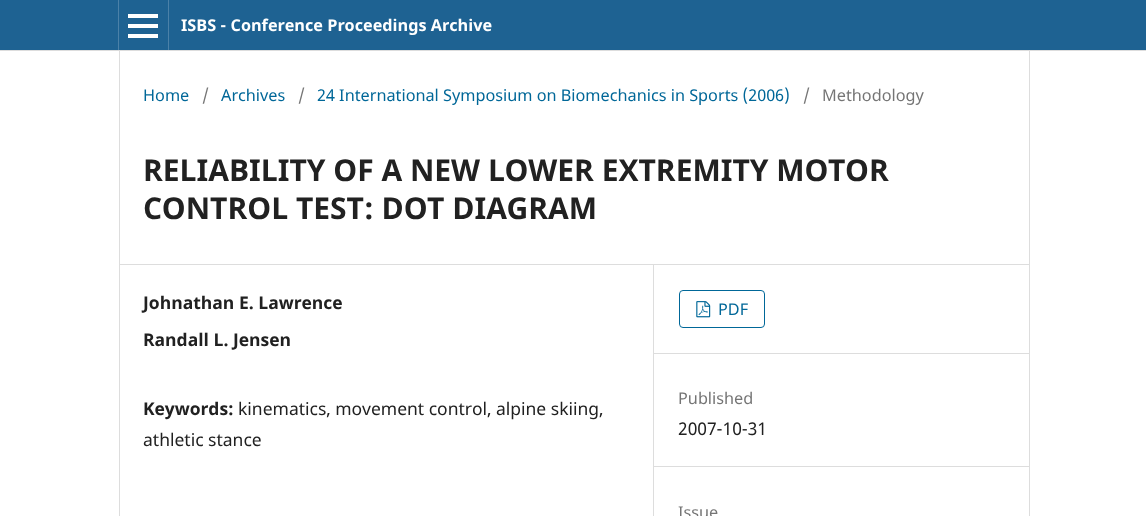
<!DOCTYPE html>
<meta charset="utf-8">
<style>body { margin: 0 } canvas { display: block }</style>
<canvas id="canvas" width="1146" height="516"></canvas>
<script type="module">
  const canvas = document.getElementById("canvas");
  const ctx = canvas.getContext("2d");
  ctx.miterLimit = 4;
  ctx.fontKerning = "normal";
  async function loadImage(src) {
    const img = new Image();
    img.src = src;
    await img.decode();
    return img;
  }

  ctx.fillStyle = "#ffffff";
  ctx.fillRect(0, 0, 1146, 516);
  ctx.fillStyle = "#1e6292";
  ctx.fillRect(0, 0, 1146, 50);
  ctx.fillStyle = "#dddddd";
  ctx.fillRect(0, 50, 1146, 1);
  ctx.fillStyle = "#4b81a8";
  ctx.fillRect(118, 0, 1, 50);
  ctx.fillRect(168, 0, 1, 50);
  ctx.fillStyle = "#ffffff";
  ctx.fillRect(128, 34, 30, 4);
  ctx.fillRect(128, 14, 30, 4);
  ctx.fillRect(128, 24, 30, 4);
  ctx.font = "bold 16.25px Noto Sans";
  ctx.fillText("ISBS - Conference Proceedings Archive", 181, 31);
  ctx.fillStyle = "#dddddd";
  ctx.fillRect(119, 264, 910, 1);
  ctx.fillRect(119, 51, 1, 465);
  ctx.font = "16.25px Noto Sans";
  ctx.fillStyle = "#006798";
  ctx.fillText("Home", 143, 101);
  ctx.fillStyle = "#757575";
  ctx.fillText("/", 202, 101);
  ctx.fillStyle = "#006798";
  ctx.fillText("Archives", 221, 101);
  ctx.fillStyle = "#757575";
  ctx.fillText("/", 298, 101);
  ctx.fillStyle = "#006798";
  ctx.fillText("24 International Symposium on Biomechanics in Sports (2006)", 317, 101);
  ctx.fillStyle = "#757575";
  ctx.fillText("/", 803, 101);
  ctx.fillText("Methodology", 822, 101);
  ctx.font = "bold 30px Noto Sans";
  ctx.fillStyle = "#212121";
  ctx.fillText("RELIABILITY OF A NEW LOWER EXTREMITY MOTOR", 143, 181);
  ctx.fillText("CONTROL TEST: DOT DIAGRAM", 143, 219);
  ctx.fillStyle = "#dddddd";
  ctx.fillRect(653, 265, 1, 251);
  ctx.font = "bold 17.5px Noto Sans";
  ctx.fillStyle = "#212121";
  ctx.fillText("Johnathan E. Lawrence", 143, 309);
  ctx.fillText("Randall L. Jensen", 143, 346);
  ctx.fillText("Keywords:", 143, 415);
  ctx.font = "17.5px Noto Sans";
  ctx.fillText("kinematics, movement control, alpine skiing,", 238, 415);
  ctx.fillText("athletic stance", 143, 446);
  ctx.fillStyle = "#dddddd";
  ctx.fillRect(654, 353, 375, 1);
  ctx.beginPath();
  ctx.roundRect(679.5, 290.5, 85, 37, 3.5);
  ctx.strokeStyle = "#006798";
  ctx.stroke();
  ctx.drawImage(await loadImage("img1.png"), 696, 301, 15, 17);
  ctx.font = "16.25px Noto Sans";
  ctx.fillStyle = "#006798";
  ctx.fillText("PDF", 718, 315);
  ctx.fillStyle = "#dddddd";
  ctx.fillRect(654, 466, 375, 1);
  ctx.fillStyle = "#757575";
  ctx.fillText("Published", 678, 404);
  ctx.font = "17.5px Noto Sans";
  ctx.fillStyle = "#212121";
  ctx.fillText("2007-10-31", 678, 435);
  ctx.font = "16.25px Noto Sans";
  ctx.fillStyle = "#757575";
  ctx.fillText("Issue", 678, 518);
  ctx.fillStyle = "#dddddd";
  ctx.fillRect(1029, 51, 1, 465);
</script>
